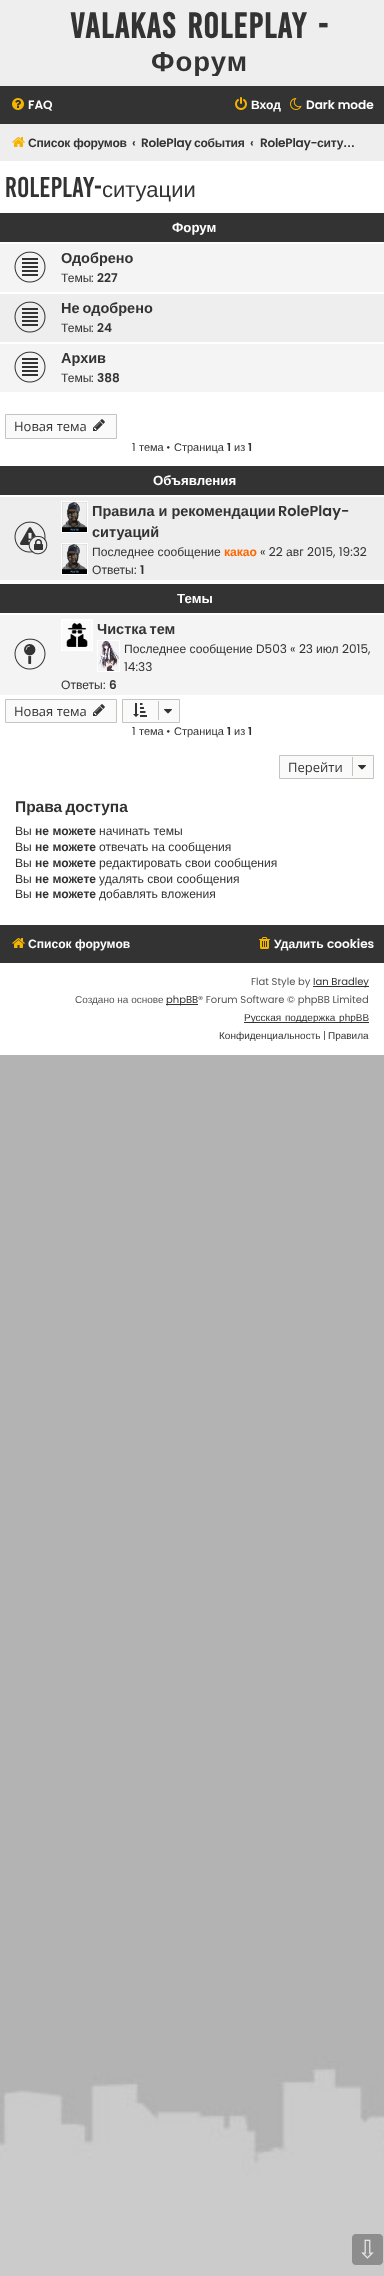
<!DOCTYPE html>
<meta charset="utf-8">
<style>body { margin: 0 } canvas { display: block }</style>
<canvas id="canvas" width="384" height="2276"></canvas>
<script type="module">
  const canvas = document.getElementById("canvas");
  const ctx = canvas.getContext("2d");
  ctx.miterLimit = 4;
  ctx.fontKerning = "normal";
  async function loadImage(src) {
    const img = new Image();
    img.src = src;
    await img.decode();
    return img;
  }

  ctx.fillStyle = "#ffffff";
  ctx.fillRect(0, 0, 384, 2276);
  ctx.drawImage(await loadImage("img1.png"), 0, 1055, 384, 1221);
  ctx.fillStyle = "#eeeeee";
  ctx.fillRect(0, 0, 384, 86);
  ctx.letterSpacing = "1px";
  ctx.wordSpacing = "4px";
  ctx.font = "bold 27.5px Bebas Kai";
  ctx.fillStyle = "#333333";
  ctx.fillText("Valakas Roleplay -", 70, 38);
  ctx.save();
  ctx.beginPath();
  ctx.rect(25, 10, 349, 66);
  ctx.clip();
  ctx.wordSpacing = "0px";
  ctx.font = "bold 27.5px Liberation Sans";
  ctx.fillText("Форум", 151, 71);
  ctx.restore();
  ctx.fillRect(0, 86, 384, 38);
  ctx.drawImage(await loadImage("img2.png"), 12, 98, 12, 12);
  ctx.letterSpacing = "0px";
  ctx.wordSpacing = "0px";
  ctx.font = "600 12.1px Poppins";
  ctx.fillStyle = "#ffffff";
  ctx.fillText("FAQ", 28, 109);
  ctx.drawImage(await loadImage("img3.png"), 235, 97, 12, 13);
  ctx.font = "bold 12.1px Liberation Sans";
  ctx.fillText("Вход", 251, 109);
  ctx.drawImage(await loadImage("img4.png"), 290, 98, 12, 12);
  ctx.font = "600 12.1px Poppins";
  ctx.fillText("Dark mode", 306, 109);
  ctx.fillStyle = "#eeeeee";
  ctx.fillRect(0, 124, 384, 37);
  ctx.drawImage(await loadImage("img5.png"), 12, 137, 13, 10);
  ctx.letterSpacing = "-0.25px";
  ctx.font = "bold 12.1px Liberation Sans";
  ctx.fillStyle = "#333333";
  ctx.fillText("Список форумов", 28, 147);
  ctx.letterSpacing = "0px";
  ctx.font = "600 12.1px Poppins";
  ctx.fillText("‹", 132, 147);
  ctx.letterSpacing = "-0.25px";
  ctx.fillText("RolePlay", 141, 147);
  ctx.font = "bold 12.1px Liberation Sans";
  ctx.fillText("события", 194, 147);
  ctx.letterSpacing = "0px";
  ctx.font = "600 12.1px Poppins";
  ctx.fillText("‹", 250, 147);
  ctx.letterSpacing = "-0.25px";
  ctx.fillText("RolePlay-", 260, 147);
  ctx.font = "bold 12.1px Liberation Sans";
  ctx.fillText("ситу…", 317, 147);
  ctx.letterSpacing = "0px";
  ctx.font = "22px Bebas Kai";
  ctx.fillText("RolePlay-", 5, 197);
  ctx.font = "22px Liberation Sans";
  ctx.fillText("ситуации", 102, 197);
  ctx.fillRect(0, 213, 384, 29);
  ctx.font = "bold 13.25px Liberation Sans";
  ctx.fillStyle = "#ffffff";
  ctx.fillText("Форум", 172, 232);
  ctx.fillStyle = "#eeeeee";
  ctx.fillRect(0, 294, 384, 48);
  ctx.fillStyle = "#f4f4f4";
  ctx.fillRect(0, 244, 384, 48);
  ctx.drawImage(await loadImage("img6.png"), 14, 251, 32, 32);
  ctx.font = "bold 14.5px Liberation Sans";
  ctx.fillStyle = "#333333";
  ctx.fillText("Одобрено", 61, 263);
  ctx.font = "12.1px Liberation Sans";
  ctx.fillText("Темы", 61, 282);
  ctx.font = "12.1px Poppins";
  ctx.fillText(":", 91, 282);
  ctx.font = "600 12.1px Poppins";
  ctx.fillText("227", 97, 282);
  ctx.drawImage(await loadImage("img7.png"), 14, 301, 32, 32);
  ctx.wordSpacing = "-1px";
  ctx.font = "bold 14.5px Liberation Sans";
  ctx.fillText("Не одобрено", 61, 313);
  ctx.wordSpacing = "0px";
  ctx.font = "12.1px Liberation Sans";
  ctx.fillText("Темы", 61, 332);
  ctx.font = "12.1px Poppins";
  ctx.fillText(":", 91, 332);
  ctx.font = "600 12.1px Poppins";
  ctx.fillText("24", 97, 332);
  ctx.fillStyle = "#f4f4f4";
  ctx.fillRect(0, 344, 384, 48);
  ctx.drawImage(await loadImage("img6.png"), 14, 351, 32, 32);
  ctx.font = "bold 14.5px Liberation Sans";
  ctx.fillStyle = "#333333";
  ctx.fillText("Архив", 61, 363);
  ctx.font = "12.1px Liberation Sans";
  ctx.fillText("Темы", 61, 382);
  ctx.font = "12.1px Poppins";
  ctx.fillText(":", 91, 382);
  ctx.font = "600 12.1px Poppins";
  ctx.fillText("388", 97, 382);
  ctx.fillStyle = "#fafafa";
  ctx.beginPath();
  ctx.rect(5.5, 414.5, 111, 24);
  ctx.fill();
  ctx.strokeStyle = "#c7c3bf";
  ctx.stroke();
  ctx.font = "13px Open Sans";
  ctx.fillStyle = "#333333";
  ctx.fillText("Новая тема", 14, 431);
  ctx.drawImage(await loadImage("img8.png"), 93, 419, 12, 12);
  ctx.font = "11px Poppins";
  ctx.fillText("1", 132, 451);
  ctx.font = "11px Liberation Sans";
  ctx.fillText("тема", 139, 451);
  ctx.font = "11px Poppins";
  ctx.fillText("•", 166, 451);
  ctx.font = "11px Liberation Sans";
  ctx.fillText("Страница", 174, 451);
  ctx.font = "600 11px Poppins";
  ctx.fillText("1", 227, 451);
  ctx.font = "11px Liberation Sans";
  ctx.fillText("из", 234, 451);
  ctx.font = "600 11px Poppins";
  ctx.fillText("1", 248, 451);
  ctx.fillRect(0, 466, 384, 29);
  ctx.font = "bold 13.25px Liberation Sans";
  ctx.fillStyle = "#ffffff";
  ctx.fillText("Объявления", 153, 485);
  ctx.fillStyle = "#eeeeee";
  ctx.fillRect(0, 497, 384, 83);
  ctx.drawImage(await loadImage("img9.png"), 14, 521, 34, 34);
  ctx.strokeStyle = "#ffffff";
  ctx.strokeRect(61.5, 501.5, 26, 31);
  ctx.drawImage(await loadImage("img10.png"), 62, 502, 25, 30);
  ctx.font = "bold 14.5px Liberation Sans";
  ctx.fillStyle = "#333333";
  ctx.fillText("Правила и рекомендации", 92, 516);
  ctx.font = "600 14.5px Poppins";
  ctx.fillText("RolePlay-", 278, 516);
  ctx.font = "bold 14.5px Liberation Sans";
  ctx.fillText("ситуаций", 92, 537);
  ctx.strokeRect(61.5, 543.5, 26, 31);
  ctx.drawImage(await loadImage("img10.png"), 62, 544, 25, 30);
  ctx.font = "12.1px Liberation Sans";
  ctx.fillText("Последнее сообщение", 92, 556);
  ctx.font = "bold 12.1px Liberation Sans";
  ctx.fillStyle = "#ff6600";
  ctx.fillText("какао", 224, 556);
  ctx.font = "12.1px Poppins";
  ctx.fillStyle = "#333333";
  ctx.fillText("« 22", 260, 556);
  ctx.font = "12.1px Liberation Sans";
  ctx.fillText("авг", 286, 556);
  ctx.font = "12.1px Poppins";
  ctx.fillText("2015, 19:32", 307, 556);
  ctx.font = "12.1px Liberation Sans";
  ctx.fillText("Ответы", 92, 574);
  ctx.font = "12.1px Poppins";
  ctx.fillText(":", 134, 574);
  ctx.font = "600 12.1px Poppins";
  ctx.fillText("1", 140, 574);
  ctx.fillRect(0, 584, 384, 29);
  ctx.font = "bold 13.25px Liberation Sans";
  ctx.fillStyle = "#ffffff";
  ctx.fillText("Темы", 177, 603);
  ctx.fillStyle = "#f4f4f4";
  ctx.fillRect(0, 615, 384, 80);
  ctx.drawImage(await loadImage("img11.png"), 14, 638, 32, 32);
  ctx.strokeRect(61.5, 619.5, 31, 31);
  ctx.drawImage(await loadImage("img12.png"), 62, 620, 30, 30);
  ctx.wordSpacing = "-1px";
  ctx.font = "bold 14.5px Liberation Sans";
  ctx.fillStyle = "#333333";
  ctx.fillText("Чистка тем", 97, 634);
  ctx.strokeRect(97.5, 640.5, 22, 31);
  ctx.drawImage(await loadImage("img13.png"), 98, 641, 21, 30);
  ctx.wordSpacing = "0px";
  ctx.font = "12.1px Liberation Sans";
  ctx.fillText("Последнее сообщение", 124, 653);
  ctx.font = "12.1px Poppins";
  ctx.fillText("D503 « 23", 256, 653);
  ctx.font = "12.1px Liberation Sans";
  ctx.fillText("июл", 316, 653);
  ctx.font = "12.1px Poppins";
  ctx.fillText("2015,", 342, 653);
  ctx.fillText("14:33", 124, 671);
  ctx.font = "12.1px Liberation Sans";
  ctx.fillText("Ответы", 61, 689);
  ctx.font = "12.1px Poppins";
  ctx.fillText(":", 103, 689);
  ctx.font = "600 12.1px Poppins";
  ctx.fillText("6", 109, 689);
  ctx.fillStyle = "#fafafa";
  ctx.beginPath();
  ctx.rect(5.5, 699.5, 111, 23);
  ctx.fill();
  ctx.strokeStyle = "#c7c3bf";
  ctx.stroke();
  ctx.font = "13px Open Sans";
  ctx.fillStyle = "#333333";
  ctx.fillText("Новая тема", 14, 716);
  ctx.drawImage(await loadImage("img8.png"), 93, 704, 12, 12);
  ctx.fillStyle = "#fafafa";
  ctx.beginPath();
  ctx.rect(122.5, 699.5, 57, 23);
  ctx.fill();
  ctx.stroke();
  ctx.drawImage(await loadImage("img14.png"), 133, 703, 14, 14);
  ctx.fillStyle = "#c7c3bf";
  ctx.fillRect(158, 701, 1, 19);
  ctx.drawImage(await loadImage("img15.png"), 164, 709, 8, 5);
  ctx.font = "11px Poppins";
  ctx.fillStyle = "#333333";
  ctx.fillText("1", 132, 735);
  ctx.font = "11px Liberation Sans";
  ctx.fillText("тема", 139, 735);
  ctx.font = "11px Poppins";
  ctx.fillText("•", 166, 735);
  ctx.font = "11px Liberation Sans";
  ctx.fillText("Страница", 174, 735);
  ctx.font = "600 11px Poppins";
  ctx.fillText("1", 227, 735);
  ctx.font = "11px Liberation Sans";
  ctx.fillText("из", 234, 735);
  ctx.font = "600 11px Poppins";
  ctx.fillText("1", 248, 735);
  ctx.fillStyle = "#fafafa";
  ctx.beginPath();
  ctx.rect(279.5, 755.5, 94, 23);
  ctx.fill();
  ctx.stroke();
  ctx.font = "13px Open Sans";
  ctx.fillStyle = "#333333";
  ctx.fillText("Перейти", 288, 772);
  ctx.fillStyle = "#c7c3bf";
  ctx.fillRect(352, 757, 1, 19);
  ctx.drawImage(await loadImage("img15.png"), 358, 765, 8, 5);
  ctx.wordSpacing = "-1px";
  ctx.font = "bold 15.5px Liberation Sans";
  ctx.fillStyle = "#333333";
  ctx.fillText("Права доступа", 15, 812);
  ctx.wordSpacing = "0px";
  ctx.font = "12.1px Liberation Sans";
  ctx.fillText("Вы", 15, 835);
  ctx.font = "bold 12.1px Liberation Sans";
  ctx.fillText("не можете", 35, 835);
  ctx.font = "12.1px Liberation Sans";
  ctx.fillText("начинать темы", 99, 835);
  ctx.fillText("Вы", 15, 851);
  ctx.font = "bold 12.1px Liberation Sans";
  ctx.fillText("не можете", 35, 851);
  ctx.font = "12.1px Liberation Sans";
  ctx.fillText("отвечать на сообщения", 99, 851);
  ctx.fillText("Вы", 15, 867);
  ctx.font = "bold 12.1px Liberation Sans";
  ctx.fillText("не можете", 35, 867);
  ctx.font = "12.1px Liberation Sans";
  ctx.fillText("редактировать свои сообщения", 99, 867);
  ctx.fillText("Вы", 15, 883);
  ctx.font = "bold 12.1px Liberation Sans";
  ctx.fillText("не можете", 35, 883);
  ctx.font = "12.1px Liberation Sans";
  ctx.fillText("удалять свои сообщения", 99, 883);
  ctx.fillText("Вы", 15, 898);
  ctx.font = "bold 12.1px Liberation Sans";
  ctx.fillText("не можете", 35, 898);
  ctx.font = "12.1px Liberation Sans";
  ctx.fillText("добавлять вложения", 99, 898);
  ctx.fillRect(0, 925, 384, 38);
  ctx.drawImage(await loadImage("img16.png"), 12, 938, 13, 10);
  ctx.font = "bold 12.1px Liberation Sans";
  ctx.fillStyle = "#ffffff";
  ctx.fillText("Список форумов", 28, 948);
  ctx.drawImage(await loadImage("img17.png"), 259, 937, 11, 12);
  ctx.fillText("Удалить", 274, 948);
  ctx.font = "600 12.1px Poppins";
  ctx.fillText("cookies", 327, 948);
  ctx.font = "10px Poppins";
  ctx.fillStyle = "#555555";
  ctx.fillText("Flat Style by", 251, 985);
  ctx.fillStyle = "#333333";
  ctx.fillRect(313, 986, 56, 1);
  ctx.fillText("Ian Bradley", 313, 985);
  ctx.font = "10px Liberation Sans";
  ctx.fillStyle = "#555555";
  ctx.fillText("Создано на основе", 75, 1003);
  ctx.fillStyle = "#333333";
  ctx.fillRect(166, 1004, 32, 1);
  ctx.font = "10px Poppins";
  ctx.fillText("phpBB", 166, 1003);
  ctx.fillStyle = "#555555";
  ctx.fillText("® Forum Software © phpBB Limited", 198, 1003);
  ctx.fillStyle = "#333333";
  ctx.fillRect(244, 1022, 125, 1);
  ctx.wordSpacing = "1px";
  ctx.font = "10px Liberation Sans";
  ctx.fillText("Русская поддержка phpBB", 244, 1021);
  ctx.wordSpacing = "0px";
  ctx.fillText("Конфиденциальность", 219, 1039);
  ctx.font = "10px Poppins";
  ctx.fillStyle = "#555555";
  ctx.fillText("|", 323, 1039);
  ctx.font = "10px Liberation Sans";
  ctx.fillStyle = "#333333";
  ctx.fillText("Правила", 328, 1039);
  ctx.fillStyle = "#8d8d8d";
  ctx.beginPath();
  ctx.roundRect(351.5, 2233.5, 32, 32, 4.5);
  ctx.fill();
  ctx.strokeStyle = "#cccccc";
  ctx.stroke();
  ctx.font = "25px DejaVu Sans";
  ctx.fillStyle = "#e5e5e5";
  ctx.fillText("⇩", 357, 2258);
</script>
